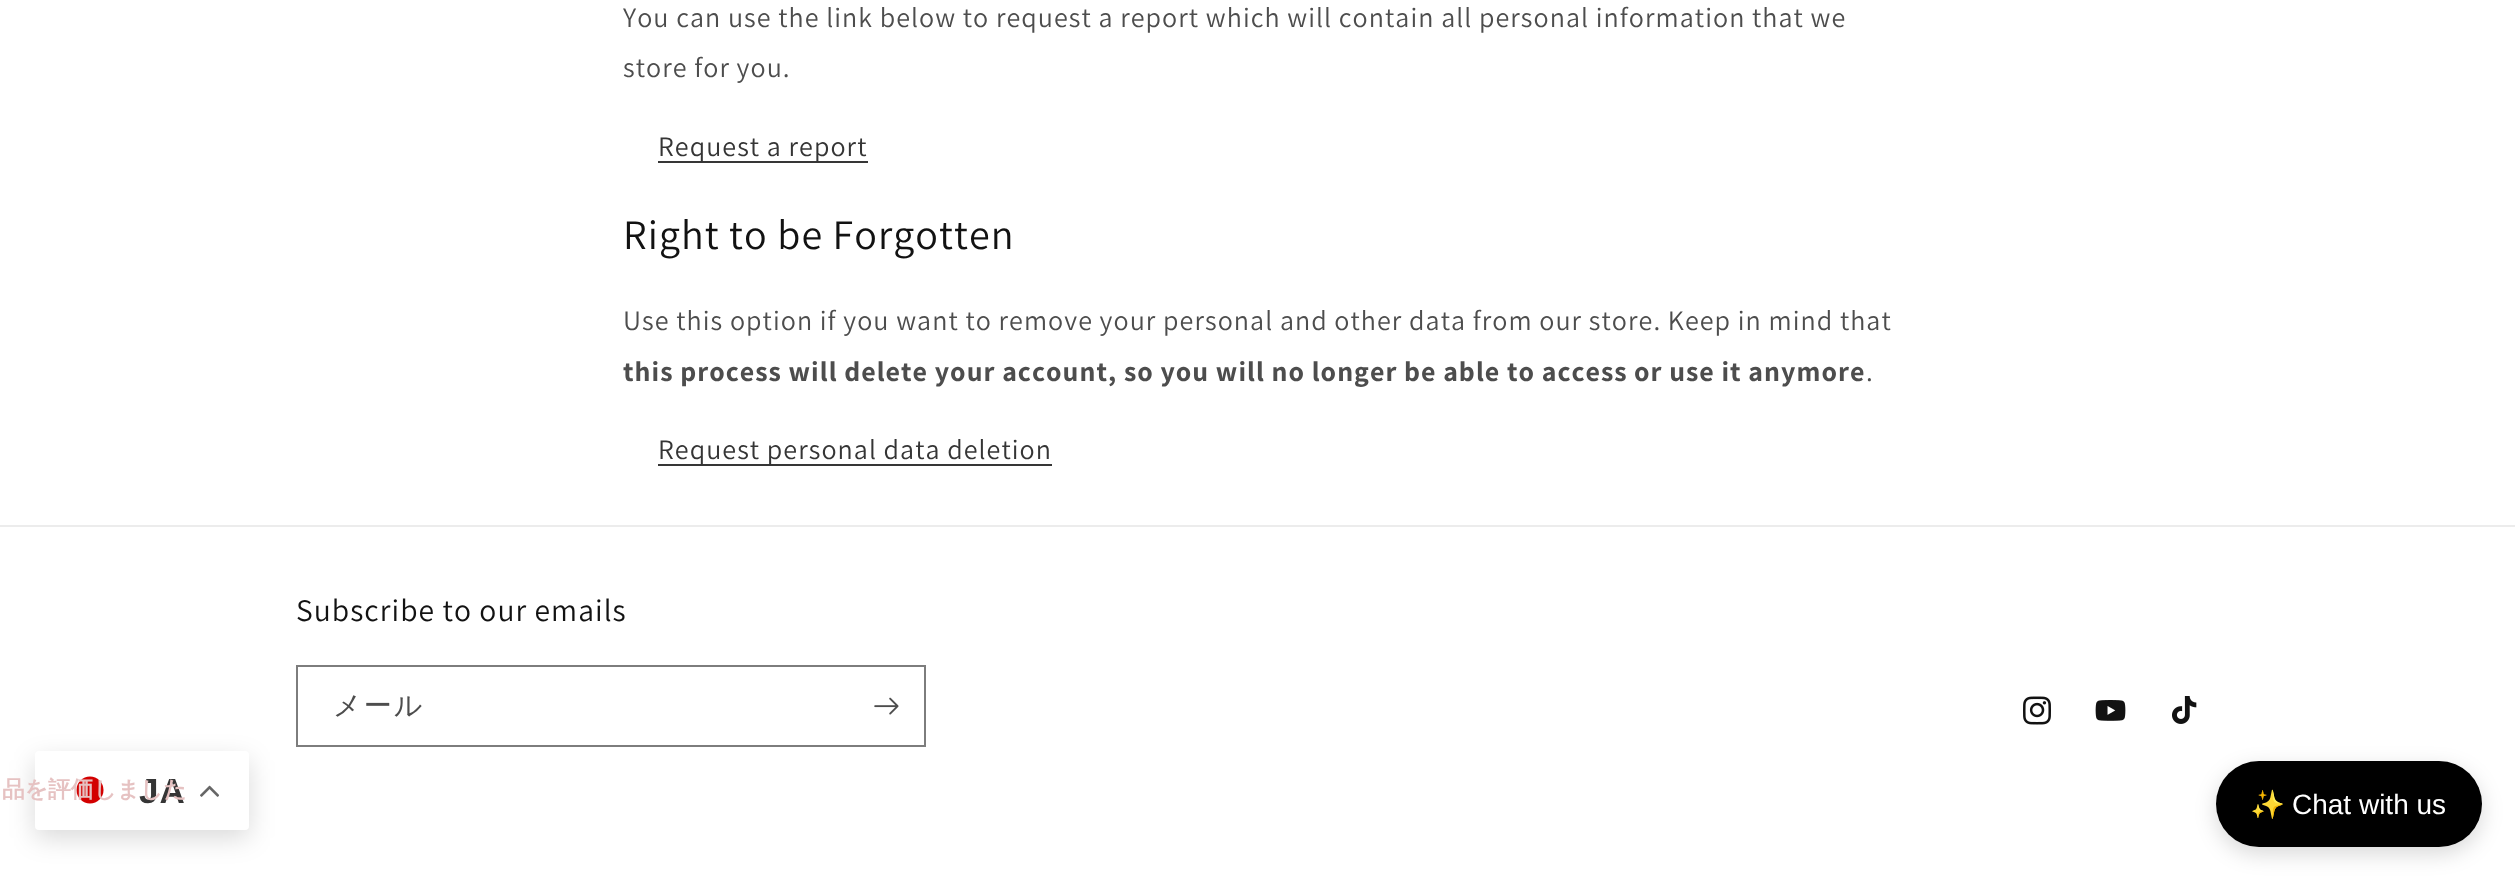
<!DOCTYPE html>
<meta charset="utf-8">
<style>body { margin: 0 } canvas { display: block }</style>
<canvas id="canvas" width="2515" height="882"></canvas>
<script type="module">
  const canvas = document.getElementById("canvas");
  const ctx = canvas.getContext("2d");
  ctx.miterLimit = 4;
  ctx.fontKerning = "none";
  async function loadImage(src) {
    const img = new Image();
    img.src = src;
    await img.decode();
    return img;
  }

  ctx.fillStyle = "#ffffff";
  ctx.fillRect(0, 0, 2515, 882);
  ctx.letterSpacing = "1.05px";
  ctx.font = "28px Assistant";
  ctx.fillStyle = "#4d4d4d";
  ctx.fillText("You can use the link below to request a report which will contain all personal information that we", 623, 27);
  ctx.fillText("store for you.", 623, 77);
  ctx.fillStyle = "#363636";
  ctx.fillRect(658, 161, 210, 2);
  ctx.fillStyle = "#353535";
  ctx.fillText("Request a report", 658, 156);
  ctx.font = "42px Assistant";
  ctx.fillStyle = "#121212";
  ctx.fillText("Right to be Forgotten", 623, 249);
  ctx.font = "28px Assistant";
  ctx.fillStyle = "#4d4d4d";
  ctx.fillText("Use this option if you want to remove your personal and other data from our store. Keep in mind that", 623, 330);
  ctx.font = "bold 28px Assistant";
  ctx.fillText("this process will delete your account, so you will no longer be able to access", 623, 381);
  ctx.fillText("or use it anymore", 1634, 381);
  ctx.font = "28px Assistant";
  ctx.fillText(".", 1866, 381);
  ctx.fillStyle = "#363636";
  ctx.fillRect(658, 464, 394, 2);
  ctx.fillStyle = "#353535";
  ctx.fillText("Request personal data deletion", 658, 459);
  ctx.fillStyle = "#ececec";
  ctx.fillRect(0, 525, 2515, 2);
  ctx.font = "31.5px Assistant";
  ctx.fillStyle = "#121212";
  ctx.fillText("Subscribe to our emails", 296, 621);
  ctx.strokeStyle = "#7d7d7d";
  ctx.lineWidth = 2;
  ctx.strokeRect(297, 666, 628, 80);
  ctx.letterSpacing = "2px";
  ctx.font = "500 28px WenQuanYi Zen Hei";
  ctx.fillStyle = "#4d4d4d";
  ctx.fillText("メール", 333, 715);
  ctx.drawImage(await loadImage("img1.png"), 874, 697, 25, 18);
  ctx.drawImage(await loadImage("img2.png"), 2023, 696, 28, 29);
  ctx.drawImage(await loadImage("img3.png"), 2095, 700, 31, 21);
  ctx.drawImage(await loadImage("img4.png"), 2172, 696, 25, 28);
  ctx.fillStyle = "rgba(0, 0, 0, 0.15)";
  ctx.filter = "blur(13px)";
  ctx.beginPath();
  ctx.roundRect(35, 760, 214, 78, 4);
  ctx.fill();
  ctx.filter = "none";
  ctx.fillStyle = "#ffffff";
  ctx.beginPath();
  ctx.roundRect(35, 751, 214, 79, 4);
  ctx.fill();
  ctx.fillStyle = "#d30000";
  ctx.beginPath();
  ctx.arc(90, 790, 13.5, 0, Math.PI * 2);
  ctx.fill();
  ctx.letterSpacing = "1.05px";
  ctx.font = "bold 35px Liberation Sans";
  ctx.fillStyle = "#353535";
  ctx.fillText("JA", 139, 803);
  ctx.letterSpacing = "0px";
  ctx.font = "bold 22.75px WenQuanYi Zen Hei";
  ctx.fillStyle = "#e6c2c2";
  ctx.fillText("品を評価しました", 2, 797);
  ctx.drawImage(await loadImage("img5.png"), 200, 785, 19, 12);
  ctx.fillStyle = "rgba(0, 0, 0, 0.15)";
  ctx.filter = "blur(10.5px)";
  ctx.beginPath();
  ctx.roundRect(2216, 768, 266, 86, 43);
  ctx.fill();
  ctx.filter = "none";
  ctx.fillStyle = "#000000";
  ctx.beginPath();
  ctx.roundRect(2216, 761, 266, 86, 43);
  ctx.fill();
  ctx.font = "28px Noto Color Emoji";
  ctx.fillStyle = "#ffffff";
  ctx.fillText("✨", 2250, 814);
  ctx.font = "28px Liberation Sans";
  ctx.fillText("Chat with us", 2292, 814);
</script>
